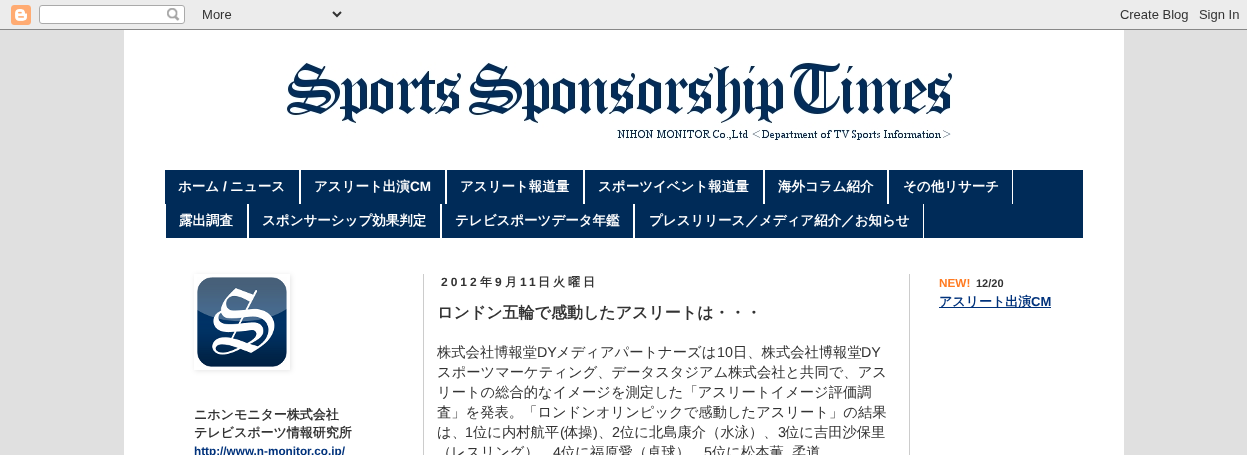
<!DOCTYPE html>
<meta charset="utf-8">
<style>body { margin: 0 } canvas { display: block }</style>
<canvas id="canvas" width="1247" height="455"></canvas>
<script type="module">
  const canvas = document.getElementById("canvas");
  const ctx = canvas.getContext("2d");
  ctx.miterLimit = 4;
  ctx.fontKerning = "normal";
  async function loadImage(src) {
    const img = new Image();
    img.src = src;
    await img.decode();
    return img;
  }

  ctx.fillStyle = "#e0e0e0";
  ctx.fillRect(0, 0, 1247, 455);
  ctx.drawImage(await loadImage("img1.png"), 0, 0, 1247, 30);
  ctx.fillStyle = "#ffffff";
  ctx.fillRect(124, 30, 1000, 425);
  ctx.drawImage(await loadImage("img2.png"), 286, 62, 667, 78);
  ctx.fillStyle = "#002b58";
  ctx.fillRect(165, 170, 918, 68);
  ctx.fillStyle = "#ffffff";
  ctx.fillRect(299, 170, 2, 34);
  ctx.font = "bold 13.5px WenQuanYi Zen Hei";
  ctx.fillText("ホーム", 178, 191);
  ctx.font = "bold 13.5px Liberation Sans";
  ctx.fillText("/", 223, 191);
  ctx.font = "bold 13.5px WenQuanYi Zen Hei";
  ctx.fillText("ニュース", 230, 191);
  ctx.fillRect(445, 170, 2, 34);
  ctx.fillText("アスリート出演", 314, 191);
  ctx.font = "bold 13.5px Liberation Sans";
  ctx.fillText("CM", 410, 191);
  ctx.fillRect(583, 170, 2, 34);
  ctx.font = "bold 13.5px WenQuanYi Zen Hei";
  ctx.fillText("アスリート報道量", 460, 191);
  ctx.fillRect(763, 170, 2, 34);
  ctx.fillText("スポーツイベント報道量", 598, 191);
  ctx.fillRect(887, 170, 2, 34);
  ctx.fillText("海外コラム紹介", 778, 191);
  ctx.fillRect(1012, 170, 1, 34);
  ctx.fillText("その他リサーチ", 903, 191);
  ctx.fillRect(247, 204, 2, 34);
  ctx.fillRect(165, 204, 1, 34);
  ctx.fillText("露出調査", 179, 225);
  ctx.fillRect(440, 204, 2, 34);
  ctx.fillText("スポンサーシップ効果判定", 262, 225);
  ctx.fillRect(633, 204, 2, 34);
  ctx.fillText("テレビスポーツデータ年鑑", 455, 225);
  ctx.fillRect(923, 204, 1, 34);
  ctx.fillText("プレスリリース／メディア紹介／お知らせ", 649, 225);
  ctx.fillStyle = "#cccccc";
  ctx.fillRect(423, 274, 1, 181);
  ctx.fillRect(909, 274, 1, 181);
  ctx.letterSpacing = "3px";
  ctx.font = "bold 12px Liberation Sans";
  ctx.fillStyle = "#333333";
  ctx.fillText("2012", 441, 286);
  ctx.font = "bold 12px WenQuanYi Zen Hei";
  ctx.fillText("年", 480, 286);
  ctx.font = "bold 12px Liberation Sans";
  ctx.fillText("9", 495, 286);
  ctx.font = "bold 12px WenQuanYi Zen Hei";
  ctx.fillText("月", 505, 286);
  ctx.font = "bold 12px Liberation Sans";
  ctx.fillText("11", 520, 286);
  ctx.font = "bold 12px WenQuanYi Zen Hei";
  ctx.fillText("日火曜日", 538, 286);
  ctx.letterSpacing = "0px";
  ctx.font = "bold 16px WenQuanYi Zen Hei";
  ctx.fillText("ロンドン五輪で感動したアスリートは・・・", 437, 318);
  ctx.font = "500 14.3px WenQuanYi Zen Hei";
  ctx.fillText("株式会社博報堂", 437, 357);
  ctx.font = "14.3px Liberation Sans";
  ctx.fillText("DY", 537, 357);
  ctx.font = "500 14.3px WenQuanYi Zen Hei";
  ctx.fillText("メディアパートナーズは", 556, 357);
  ctx.font = "14.3px Liberation Sans";
  ctx.fillText("10", 717, 357);
  ctx.font = "500 14.3px WenQuanYi Zen Hei";
  ctx.fillText("日、株式会社博報堂", 733, 357);
  ctx.font = "14.3px Liberation Sans";
  ctx.fillText("DY", 861, 357);
  ctx.font = "500 14.3px WenQuanYi Zen Hei";
  ctx.fillText("スポーツマーケティング、データスタジアム株式会社と共同で、アス", 437, 377);
  ctx.fillText("リートの総合的なイメージを測定した「アスリートイメージ評価調", 437, 397);
  ctx.fillText("査」を発表。「ロンドンオリンピックで感動したアスリート」の結果", 437, 417);
  ctx.fillText("は、", 437, 437);
  ctx.font = "14.3px Liberation Sans";
  ctx.fillText("1", 465, 437);
  ctx.font = "500 14.3px WenQuanYi Zen Hei";
  ctx.fillText("位に内村航平", 473, 437);
  ctx.font = "14.3px Liberation Sans";
  ctx.fillText("(", 560, 437);
  ctx.font = "500 14.3px WenQuanYi Zen Hei";
  ctx.fillText("体操", 564, 437);
  ctx.font = "14.3px Liberation Sans";
  ctx.fillText(")", 593, 437);
  ctx.font = "500 14.3px WenQuanYi Zen Hei";
  ctx.fillText("、", 598, 437);
  ctx.font = "14.3px Liberation Sans";
  ctx.fillText("2", 612, 437);
  ctx.font = "500 14.3px WenQuanYi Zen Hei";
  ctx.fillText("位に北島康介（水泳）、", 620, 437);
  ctx.font = "14.3px Liberation Sans";
  ctx.fillText("3", 778, 437);
  ctx.font = "500 14.3px WenQuanYi Zen Hei";
  ctx.fillText("位に吉田沙保里", 785, 437);
  ctx.fillText("（レスリング）", 437, 457);
  ctx.font = "14.3px Liberation Sans";
  ctx.fillText("4", 553, 457);
  ctx.font = "500 14.3px WenQuanYi Zen Hei";
  ctx.fillText("位に福原愛（卓球）", 561, 457);
  ctx.font = "14.3px Liberation Sans";
  ctx.fillText("5", 704, 457);
  ctx.font = "500 14.3px WenQuanYi Zen Hei";
  ctx.fillText("位に松本薫", 712, 457);
  ctx.fillText("柔道", 792, 457);
  ctx.font = "bold 11.75px Liberation Sans";
  ctx.fillStyle = "#ff7a21";
  ctx.fillText("NEW!", 939, 287);
  ctx.font = "bold 11px Liberation Sans";
  ctx.fillStyle = "#333333";
  ctx.fillText("12/20", 976, 287);
  ctx.fillStyle = "#00327b";
  ctx.fillRect(939, 307, 112, 1);
  ctx.font = "bold 13px WenQuanYi Zen Hei";
  ctx.fillText("アスリート出演", 939, 306);
  ctx.font = "bold 13px Liberation Sans";
  ctx.fillText("CM", 1031, 306);
  ctx.save();
  ctx.beginPath();
  ctx.moveTo(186, 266);
  ctx.lineTo(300, 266);
  ctx.lineTo(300, 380);
  ctx.lineTo(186, 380);
  ctx.closePath();
  ctx.moveTo(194, 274);
  ctx.lineTo(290, 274);
  ctx.lineTo(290, 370);
  ctx.lineTo(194, 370);
  ctx.closePath();
  ctx.clip("evenodd");
  ctx.fillStyle = "rgba(0, 0, 0, 0.1)";
  ctx.filter = "blur(2.5px)";
  ctx.beginPath();
  ctx.rect(195, 275, 96, 96);
  ctx.fill();
  ctx.filter = "none";
  ctx.restore();
  ctx.drawImage(await loadImage("img3.png"), 197, 277, 90, 90);
  ctx.font = "bold 13px WenQuanYi Zen Hei";
  ctx.fillStyle = "#333333";
  ctx.fillText("ニホンモニター株式会社", 194, 419);
  ctx.fillText("テレビスポーツ情報研究所", 194, 437);
  ctx.font = "bold 11.75px Liberation Sans";
  ctx.fillStyle = "#00327b";
  ctx.fillText("http://www.n-monitor.co.jp/", 194, 455);
</script>
